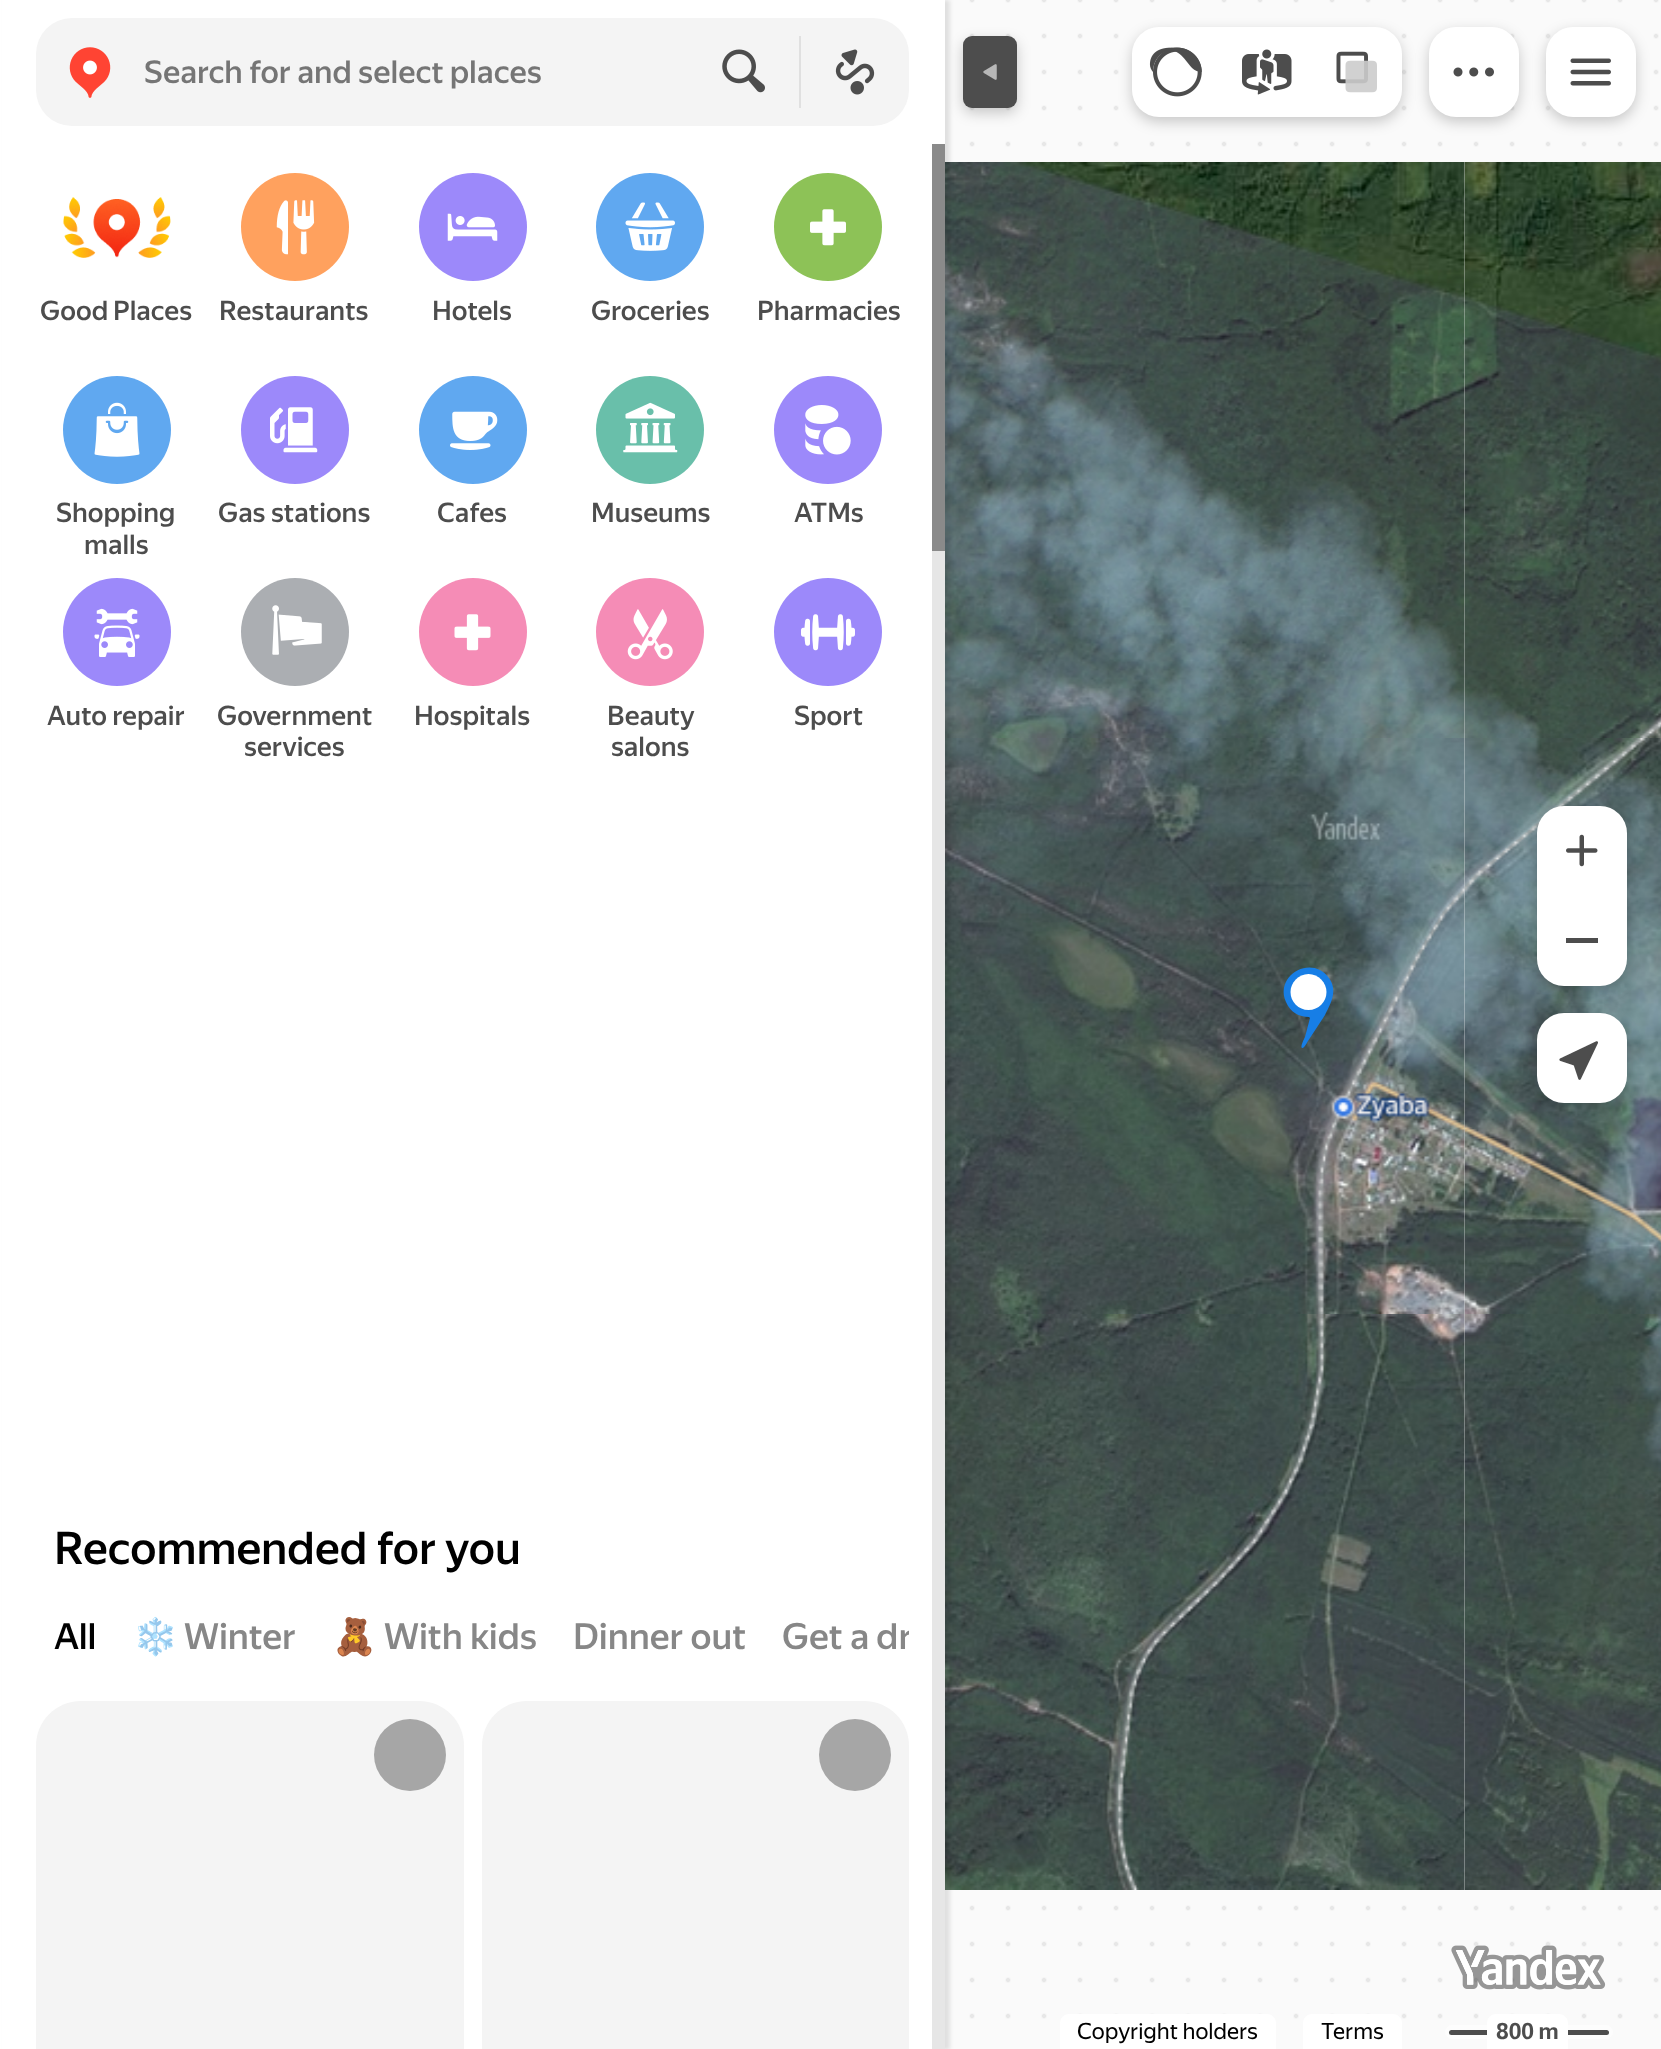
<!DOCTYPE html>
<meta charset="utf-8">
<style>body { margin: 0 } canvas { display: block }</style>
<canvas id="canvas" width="1661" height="2049"></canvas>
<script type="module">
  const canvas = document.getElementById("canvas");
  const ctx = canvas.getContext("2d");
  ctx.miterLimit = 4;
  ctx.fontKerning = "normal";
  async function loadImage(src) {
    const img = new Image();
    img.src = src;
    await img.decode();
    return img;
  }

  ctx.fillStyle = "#ffffff";
  ctx.fillRect(0, 0, 1661, 2049);
  ctx.drawImage(await loadImage("img1.png"), 945, 0, 716, 2049);
  ctx.drawImage(await loadImage("img29.png"), 945, 162, 520, 576);
  ctx.drawImage(await loadImage("img31.png"), 945, 738, 520, 576);
  ctx.drawImage(await loadImage("img33.png"), 945, 1314, 520, 576);
  ctx.fillStyle = "rgba(0, 0, 0, 0.1)";
  ctx.filter = "blur(2px)";
  ctx.beginPath();
  ctx.rect(5, 0, 945, 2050);
  ctx.fill();
  ctx.filter = "none";
  ctx.fillStyle = "rgba(0, 0, 0, 0.2)";
  ctx.filter = "blur(7px)";
  ctx.beginPath();
  ctx.roundRect(963, 41, 54, 72, 9);
  ctx.fill();
  ctx.filter = "none";
  ctx.fillStyle = "#ffffff";
  ctx.fillRect(2, 0, 943, 2049);
  ctx.fillStyle = "#f4f4f4";
  ctx.beginPath();
  ctx.roundRect(36, 18, 873, 108, 36);
  ctx.fill();
  ctx.drawImage(await loadImage("img2.png"), 69, 47, 42, 51);
  ctx.font = "500 31.5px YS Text";
  ctx.fillStyle = "#757575";
  ctx.fillText("Search for and select places", 144, 83);
  ctx.drawImage(await loadImage("img3.png"), 722, 49, 43, 44);
  ctx.fillStyle = "#e0e0e0";
  ctx.fillRect(799, 36, 2, 72);
  ctx.drawImage(await loadImage("img4.png"), 835, 49, 40, 46);
  ctx.fillStyle = "rgba(0, 0, 0, 0.2)";
  ctx.filter = "blur(7px)";
  ctx.beginPath();
  ctx.roundRect(1132, 32, 270, 90, 27);
  ctx.fill();
  ctx.filter = "none";
  ctx.fillStyle = "#ffffff";
  ctx.beginPath();
  ctx.roundRect(1132, 27, 90, 90, [27, 0, 0, 27]);
  ctx.fill();
  ctx.drawImage(await loadImage("img5.png"), 1149, 47, 53, 50);
  ctx.fillRect(1222, 27, 90, 90);
  ctx.drawImage(await loadImage("img6.png"), 1242, 49, 50, 46);
  ctx.beginPath();
  ctx.roundRect(1312, 27, 90, 90, [0, 27, 27, 0]);
  ctx.fill();
  ctx.drawImage(await loadImage("img7.png"), 1336, 51, 41, 42);
  ctx.fillStyle = "rgba(0, 0, 0, 0.2)";
  ctx.filter = "blur(7px)";
  ctx.beginPath();
  ctx.roundRect(1429, 32, 90, 90, 27);
  ctx.fill();
  ctx.filter = "none";
  ctx.fillStyle = "#ffffff";
  ctx.beginPath();
  ctx.roundRect(1429, 27, 90, 90, 27);
  ctx.fill();
  ctx.drawImage(await loadImage("img8.png"), 1453, 67, 41, 10);
  ctx.fillStyle = "rgba(0, 0, 0, 0.2)";
  ctx.filter = "blur(7px)";
  ctx.beginPath();
  ctx.roundRect(1546, 32, 90, 90, 27);
  ctx.fill();
  ctx.filter = "none";
  ctx.fillStyle = "#ffffff";
  ctx.beginPath();
  ctx.roundRect(1546, 27, 90, 90, 27);
  ctx.fill();
  ctx.drawImage(await loadImage("img9.png"), 1570, 58, 41, 28);
  ctx.drawImage(await loadImage("img32.png"), 1464, 738, 197, 576);
  ctx.drawImage(await loadImage("img36.png"), 1317, 886, 148, 428);
  ctx.drawImage(await loadImage("img37.png"), 1464, 738, 197, 505);
  ctx.fillStyle = "rgba(0, 0, 0, 0.2)";
  ctx.filter = "blur(7px)";
  ctx.beginPath();
  ctx.roundRect(1537, 810, 90, 180, 27);
  ctx.fill();
  ctx.filter = "none";
  ctx.fillStyle = "#ffffff";
  ctx.beginPath();
  ctx.roundRect(1537, 806, 90, 90, [27, 27, 0, 0]);
  ctx.fill();
  ctx.drawImage(await loadImage("img10.png"), 1566, 834, 32, 33);
  ctx.beginPath();
  ctx.roundRect(1537, 896, 90, 90, [0, 0, 27, 27]);
  ctx.fill();
  ctx.fillStyle = "#4d4d4d";
  ctx.fillRect(1566, 938, 32, 5);
  ctx.fillStyle = "rgba(0, 0, 0, 0.2)";
  ctx.filter = "blur(7px)";
  ctx.beginPath();
  ctx.roundRect(1537, 1017, 90, 90, 27);
  ctx.fill();
  ctx.filter = "none";
  ctx.fillStyle = "#ffffff";
  ctx.beginPath();
  ctx.roundRect(1537, 1013, 90, 90, 27);
  ctx.fill();
  ctx.drawImage(await loadImage("img11.png"), 1559, 1041, 39, 39);
  ctx.fillStyle = "#4d4d4d";
  ctx.beginPath();
  ctx.roundRect(963, 36, 54, 72, 9);
  ctx.fill();
  ctx.drawImage(await loadImage("img12.png"), 983, 64, 14, 16);
  ctx.drawImage(await loadImage("img13.png"), 63, 197, 108, 61);
  ctx.save();
  ctx.beginPath();
  ctx.rect(41, 295, 153, 31);
  ctx.clip();
  ctx.font = "500 27px YS Text";
  ctx.fillText("Good", 40, 320);
  ctx.restore();
  ctx.font = "500 27px YS Text";
  ctx.fillText("Places", 113, 320);
  ctx.fillStyle = "#ffa15e";
  ctx.beginPath();
  ctx.arc(295, 227, 54, 0, Math.PI * 2);
  ctx.fill();
  ctx.drawImage(await loadImage("img14.png"), 276, 200, 39, 55);
  ctx.fillStyle = "#4d4d4d";
  ctx.fillText("Restaurants", 219, 320);
  ctx.fillStyle = "#9c89fa";
  ctx.beginPath();
  ctx.arc(473, 227, 54, 0, Math.PI * 2);
  ctx.fill();
  ctx.drawImage(await loadImage("img15.png"), 447, 213, 51, 28);
  ctx.fillStyle = "#4d4d4d";
  ctx.fillText("Hotels", 432, 320);
  ctx.fillStyle = "#60a8f0";
  ctx.beginPath();
  ctx.arc(650, 227, 54, 0, Math.PI * 2);
  ctx.fill();
  ctx.drawImage(await loadImage("img16.png"), 625, 202, 50, 49);
  ctx.fillStyle = "#4d4d4d";
  ctx.fillText("Groceries", 591, 320);
  ctx.fillStyle = "#8dc257";
  ctx.beginPath();
  ctx.arc(828, 227, 54, 0, Math.PI * 2);
  ctx.fill();
  ctx.drawImage(await loadImage("img17.png"), 810, 209, 36, 37);
  ctx.fillStyle = "#4d4d4d";
  ctx.fillText("Pharmacies", 757, 320);
  ctx.fillStyle = "#60a8f0";
  ctx.beginPath();
  ctx.arc(117, 430, 54, 0, Math.PI * 2);
  ctx.fill();
  ctx.drawImage(await loadImage("img18.png"), 94, 402, 46, 55);
  ctx.fillStyle = "#4d4d4d";
  ctx.fillText("Shopping", 56, 522);
  ctx.fillText("malls", 84, 554);
  ctx.fillStyle = "#9c89fa";
  ctx.beginPath();
  ctx.arc(295, 430, 54, 0, Math.PI * 2);
  ctx.fill();
  ctx.drawImage(await loadImage("img19.png"), 270, 407, 48, 46);
  ctx.fillStyle = "#4d4d4d";
  ctx.fillText("Gas stations", 218, 522);
  ctx.fillStyle = "#60a8f0";
  ctx.beginPath();
  ctx.arc(473, 430, 54, 0, Math.PI * 2);
  ctx.fill();
  ctx.drawImage(await loadImage("img20.png"), 450, 411, 48, 39);
  ctx.fillStyle = "#4d4d4d";
  ctx.fillText("Cafes", 437, 522);
  ctx.fillStyle = "#69bfaa";
  ctx.beginPath();
  ctx.arc(650, 430, 54, 0, Math.PI * 2);
  ctx.fill();
  ctx.drawImage(await loadImage("img21.png"), 623, 402, 55, 51);
  ctx.fillStyle = "#4d4d4d";
  ctx.fillText("Museums", 591, 522);
  ctx.fillStyle = "#9c89fa";
  ctx.beginPath();
  ctx.arc(828, 430, 54, 0, Math.PI * 2);
  ctx.fill();
  ctx.drawImage(await loadImage("img22.png"), 805, 405, 46, 50);
  ctx.fillStyle = "#4d4d4d";
  ctx.fillText("ATMs", 794, 522);
  ctx.fillStyle = "#9c89fa";
  ctx.beginPath();
  ctx.arc(117, 632, 54, 0, Math.PI * 2);
  ctx.fill();
  ctx.drawImage(await loadImage("img23.png"), 94, 608, 46, 49);
  ctx.fillStyle = "#4d4d4d";
  ctx.fillText("Auto repair", 47, 725);
  ctx.fillStyle = "#abaeb2";
  ctx.beginPath();
  ctx.arc(295, 632, 54, 0, Math.PI * 2);
  ctx.fill();
  ctx.drawImage(await loadImage("img24.png"), 272, 605, 50, 50);
  ctx.fillStyle = "#4d4d4d";
  ctx.fillText("Government", 217, 725);
  ctx.fillText("services", 244, 756);
  ctx.fillStyle = "#f58cb6";
  ctx.beginPath();
  ctx.arc(473, 632, 54, 0, Math.PI * 2);
  ctx.fill();
  ctx.drawImage(await loadImage("img25.png"), 454, 614, 37, 37);
  ctx.fillStyle = "#4d4d4d";
  ctx.fillText("Hospitals", 414, 725);
  ctx.fillStyle = "#f58cb6";
  ctx.beginPath();
  ctx.arc(650, 632, 54, 0, Math.PI * 2);
  ctx.fill();
  ctx.drawImage(await loadImage("img26.png"), 627, 609, 46, 51);
  ctx.fillStyle = "#4d4d4d";
  ctx.fillText("Beauty", 607, 725);
  ctx.fillText("salons", 611, 756);
  ctx.fillStyle = "#9c89fa";
  ctx.beginPath();
  ctx.arc(828, 632, 54, 0, Math.PI * 2);
  ctx.fill();
  ctx.drawImage(await loadImage("img27.png"), 801, 614, 54, 37);
  ctx.fillStyle = "#4d4d4d";
  ctx.fillText("Sport", 794, 725);
  ctx.font = "500 45px YS Text";
  ctx.fillStyle = "#000000";
  ctx.fillText("Recommended for you", 54, 1564);
  ctx.font = "500 36px YS Text";
  ctx.fillText("All", 54, 1649);
  ctx.font = "36px Noto Color Emoji";
  ctx.fillStyle = "#878787";
  ctx.fillText("❄️", 133, 1649);
  ctx.font = "500 36px YS Text";
  ctx.fillText("Winter", 184, 1649);
  ctx.font = "36px Noto Color Emoji";
  ctx.fillText("🧸", 332, 1649);
  ctx.font = "500 36px YS Text";
  ctx.fillText("With kids", 384, 1649);
  ctx.fillText("Dinner out", 573, 1649);
  ctx.save();
  ctx.beginPath();
  ctx.rect(36, 1593, 873, 90);
  ctx.clip();
  ctx.fillText("Get a dr", 782, 1649);
  ctx.restore();
  ctx.fillStyle = "#f4f4f4";
  ctx.beginPath();
  ctx.moveTo(81, 1701);
  ctx.lineTo(419, 1701);
  ctx.bezierCurveTo(444, 1701, 464, 1721, 464, 1746);
  ctx.lineTo(464, 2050);
  ctx.lineTo(36, 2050);
  ctx.lineTo(36, 1746);
  ctx.bezierCurveTo(36, 1721, 56, 1701, 81, 1701);
  ctx.closePath();
  ctx.fill();
  ctx.fillStyle = "#a6a6a6";
  ctx.beginPath();
  ctx.arc(410, 1755, 36, 0, Math.PI * 2);
  ctx.fill();
  ctx.fillStyle = "#f4f4f4";
  ctx.beginPath();
  ctx.moveTo(527, 1701);
  ctx.lineTo(864, 1701);
  ctx.bezierCurveTo(889, 1701, 909, 1721, 909, 1746);
  ctx.lineTo(909, 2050);
  ctx.lineTo(482, 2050);
  ctx.lineTo(482, 1746);
  ctx.bezierCurveTo(482, 1721, 502, 1701, 527, 1701);
  ctx.closePath();
  ctx.fill();
  ctx.fillStyle = "#a6a6a6";
  ctx.beginPath();
  ctx.arc(855, 1755, 36, 0, Math.PI * 2);
  ctx.fill();
  ctx.fillStyle = "#8a8a8a";
  ctx.fillRect(932, 144, 13, 407);
  ctx.fillStyle = "#e6e6e6";
  ctx.fillRect(932, 551, 13, 1498);
  ctx.drawImage(await loadImage("img28.png"), 1451, 1945, 155, 45);
  ctx.fillStyle = "#ffffff";
  ctx.beginPath();
  ctx.moveTo(1069, 2014);
  ctx.lineTo(1267, 2014);
  ctx.bezierCurveTo(1272, 2014, 1276, 2018, 1276, 2023);
  ctx.lineTo(1276, 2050);
  ctx.lineTo(1060, 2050);
  ctx.lineTo(1060, 2023);
  ctx.bezierCurveTo(1060, 2018, 1064, 2014, 1069, 2014);
  ctx.closePath();
  ctx.fill();
  ctx.font = "22.5px YS Text";
  ctx.fillStyle = "#000000";
  ctx.fillText("Copyright holders", 1077, 2039);
  ctx.fillStyle = "#ffffff";
  ctx.beginPath();
  ctx.moveTo(1312, 2014);
  ctx.lineTo(1393, 2014);
  ctx.bezierCurveTo(1398, 2014, 1402, 2018, 1402, 2023);
  ctx.lineTo(1402, 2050);
  ctx.lineTo(1303, 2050);
  ctx.lineTo(1303, 2023);
  ctx.bezierCurveTo(1303, 2018, 1307, 2014, 1312, 2014);
  ctx.closePath();
  ctx.fill();
  ctx.fillStyle = "#000000";
  ctx.fillText("Terms", 1321, 2039);
  ctx.fillStyle = "#fdfdfd";
  ctx.beginPath();
  ctx.roundRect(1445, 2025, 168, 14, 7);
  ctx.fill();
  ctx.fillStyle = "#4d4d4d";
  ctx.beginPath();
  ctx.roundRect(1449, 2030, 160, 5, 2.5);
  ctx.fill();
  ctx.fillStyle = "#ffffff";
  ctx.beginPath();
  ctx.moveTo(1496, 2014);
  ctx.lineTo(1559, 2014);
  ctx.bezierCurveTo(1564, 2014, 1568, 2018, 1568, 2023);
  ctx.lineTo(1568, 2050);
  ctx.lineTo(1487, 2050);
  ctx.lineTo(1487, 2023);
  ctx.bezierCurveTo(1487, 2018, 1491, 2014, 1496, 2014);
  ctx.closePath();
  ctx.fill();
  ctx.font = "bold 22.5px YS Text";
  ctx.fillStyle = "#4d4d4d";
  ctx.fillText("800 m", 1496, 2039);
  ctx.drawImage(await loadImage("img30.png"), 1464, 162, 197, 576);
  ctx.drawImage(await loadImage("img34.png"), 1464, 1314, 197, 576);
  ctx.drawImage(await loadImage("img35.png"), 1640, 720, 21, 18);
  ctx.drawImage(await loadImage("img38.png"), 1117, 1314, 207, 576);
  ctx.fillStyle = "#177ee6";
  ctx.beginPath();
  ctx.moveTo(1310, 1018);
  ctx.lineTo(1309, 1017);
  ctx.bezierCurveTo(1299, 1017, 1290, 1012, 1286, 1002);
  ctx.bezierCurveTo(1274, 975, 1312, 954, 1329, 978);
  ctx.bezierCurveTo(1338, 991, 1331, 1003, 1325, 1015);
  ctx.lineTo(1308, 1041);
  ctx.bezierCurveTo(1308, 1041, 1304, 1049, 1302, 1048);
  ctx.bezierCurveTo(1300, 1047, 1304, 1039, 1305, 1037);
  ctx.closePath();
  ctx.fill();
  ctx.fillStyle = "#ffffff";
  ctx.beginPath();
  ctx.moveTo(1308.5, 1010);
  ctx.bezierCurveTo(1318.5, 1010, 1326.5, 1002, 1326.5, 992);
  ctx.bezierCurveTo(1326.5, 982.5, 1318.5, 974, 1308.5, 974);
  ctx.bezierCurveTo(1298.5, 974, 1290.5, 982.5, 1290.5, 992);
  ctx.bezierCurveTo(1290.5, 1002, 1298.5, 1010, 1308.5, 1010);
  ctx.closePath();
  ctx.fill();
</script>
